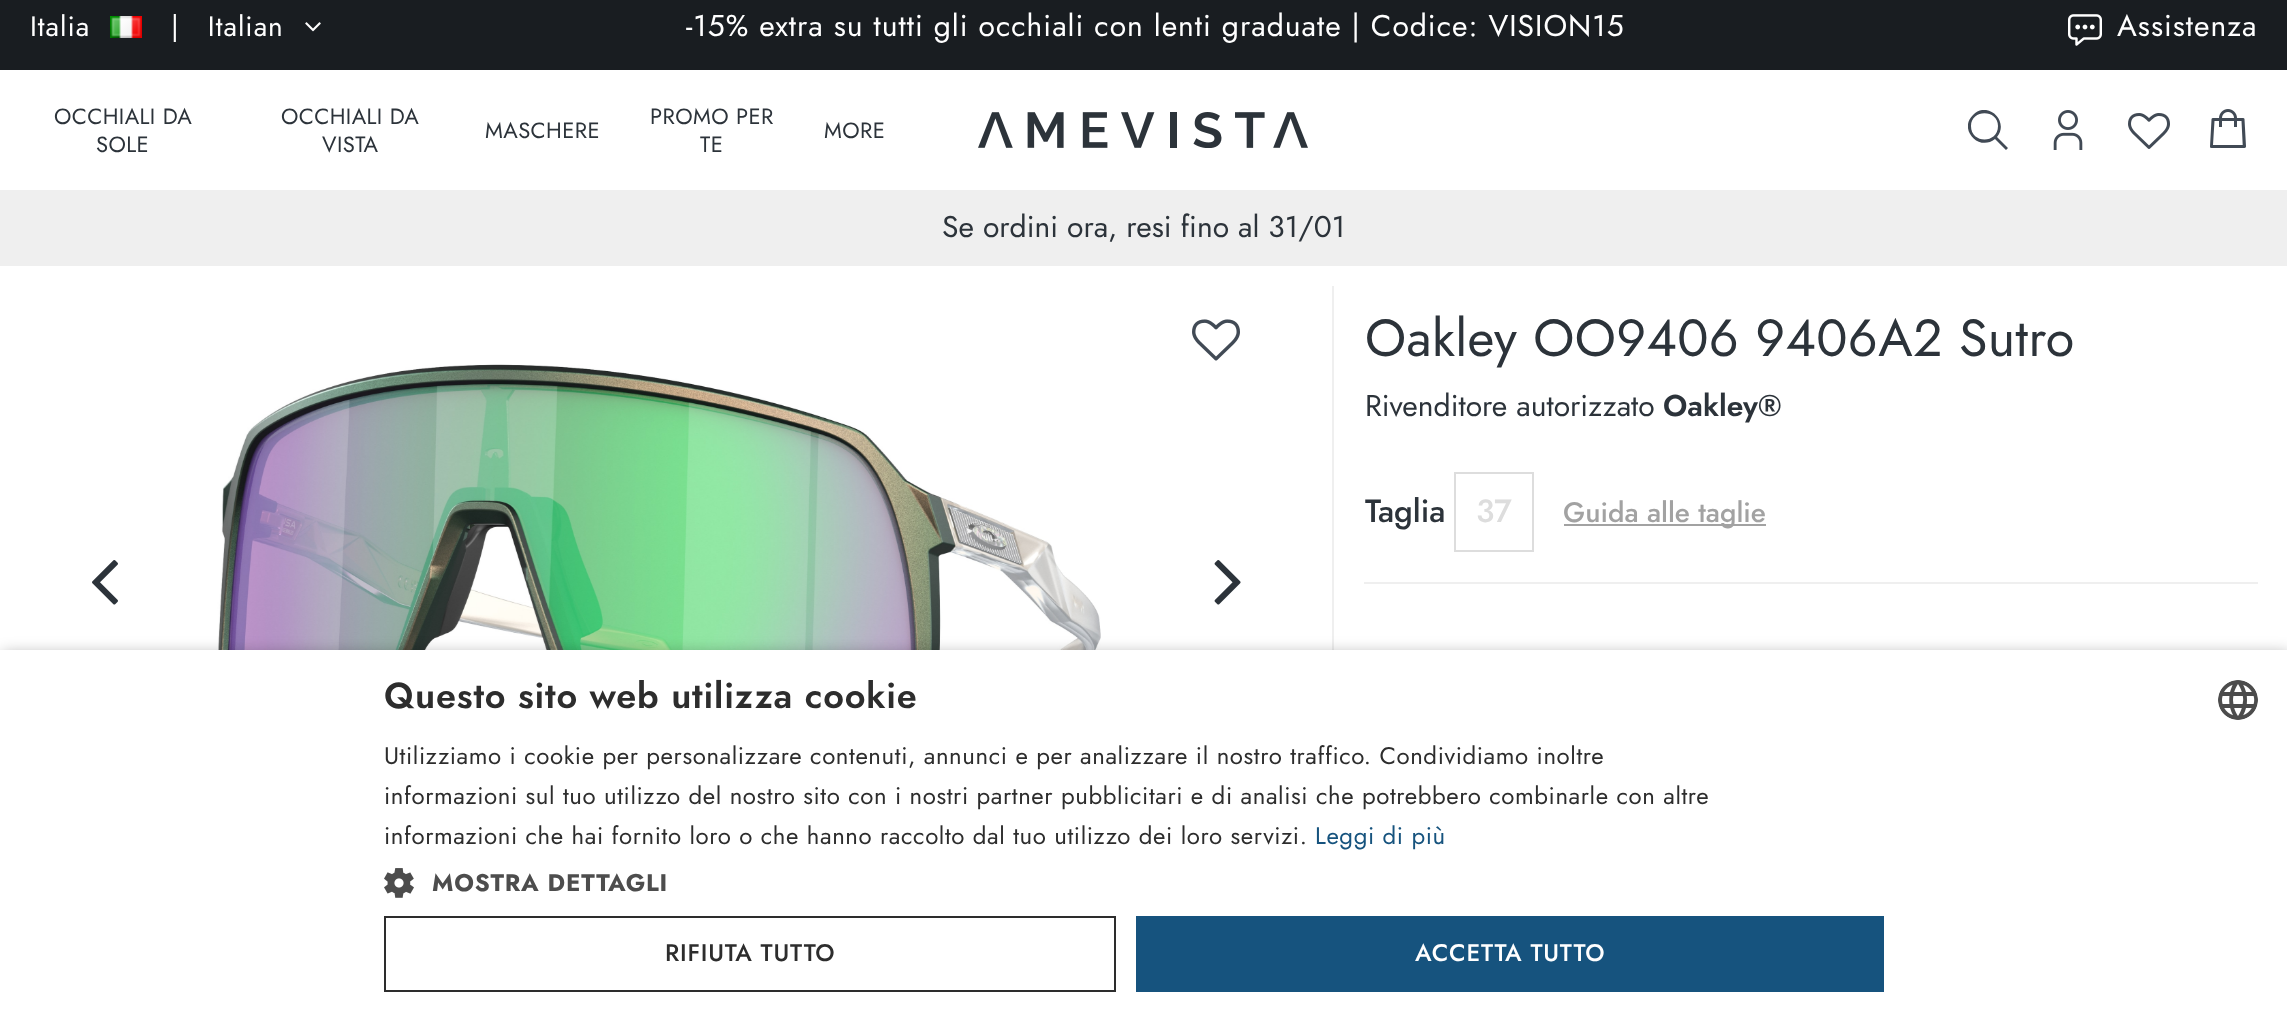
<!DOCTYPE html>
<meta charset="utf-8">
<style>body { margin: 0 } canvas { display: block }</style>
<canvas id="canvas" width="2287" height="1015"></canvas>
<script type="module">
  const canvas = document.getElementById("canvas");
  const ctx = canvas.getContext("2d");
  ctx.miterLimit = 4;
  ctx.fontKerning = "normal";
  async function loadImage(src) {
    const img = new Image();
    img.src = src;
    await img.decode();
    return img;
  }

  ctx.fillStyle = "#ffffff";
  ctx.fillRect(0, 0, 2287, 1015);
  ctx.fillStyle = "#191d21";
  ctx.fillRect(0, 0, 2287, 70);
  ctx.letterSpacing = "1px";
  ctx.font = "28px Jost";
  ctx.fillStyle = "#ffffff";
  ctx.fillText("Italia", 30, 36);
  ctx.drawImage(await loadImage("img1.png"), 110, 16, 32, 22);
  ctx.fillText("|   Italian", 171, 36);
  ctx.drawImage(await loadImage("img2.png"), 305, 22, 16, 10);
  ctx.font = "30px Jost";
  ctx.fillText("-15% extra su tutti gli occhiali con lenti graduate | Codice: VISION15", 686, 36);
  ctx.drawImage(await loadImage("img3.png"), 2068, 14, 34, 32);
  ctx.fillText("Assistenza", 2117, 36);
  ctx.letterSpacing = "0.4px";
  ctx.font = "22px Jost";
  ctx.fillStyle = "#2c333a";
  ctx.fillText("OCCHIALI DA", 54, 124);
  ctx.fillText("SOLE", 96, 152);
  ctx.fillText("OCCHIALI DA", 281, 124);
  ctx.fillText("VISTA", 322, 152);
  ctx.fillText("MASCHERE", 485, 138);
  ctx.fillText("PROMO PER", 650, 124);
  ctx.fillText("TE", 700, 152);
  ctx.fillText("MORE", 824, 138);
  ctx.drawImage(await loadImage("img4.png"), 978, 112, 330, 36);
  ctx.save();
  ctx.beginPath();
  ctx.rect(1968, 110, 40, 40);
  ctx.clip();
  ctx.fillStyle = "#414a55";
  ctx.beginPath();
  ctx.moveTo(2008, 148);
  ctx.lineTo(1997, 137);
  ctx.bezierCurveTo(2010, 121, 1987, 100, 1973, 115);
  ctx.bezierCurveTo(1958, 129, 1979, 152, 1995, 139);
  ctx.lineTo(2006, 150);
  ctx.closePath();
  ctx.moveTo(1971, 126);
  ctx.bezierCurveTo(1971, 109, 1998, 109, 1998, 126);
  ctx.bezierCurveTo(1998, 144, 1971, 144, 1971, 126);
  ctx.closePath();
  ctx.fill();
  ctx.restore();
  ctx.drawImage(await loadImage("img5.png"), 2053, 110, 30, 40);
  ctx.drawImage(await loadImage("img6.png"), 2128, 113, 42, 36);
  ctx.drawImage(await loadImage("img7.png"), 2210, 109, 36, 39);
  ctx.fillStyle = "#efefef";
  ctx.fillRect(0, 190, 2287, 76);
  ctx.letterSpacing = "0px";
  ctx.font = "30px Jost";
  ctx.fillStyle = "#2c333a";
  ctx.fillText("Se ordini ora, resi fino al 31/01", 942, 237);
  ctx.fillStyle = "#efefef";
  ctx.fillRect(1332, 286, 2, 364);
  ctx.drawImage(await loadImage("img8.png"), 1192, 319, 48, 42);
  ctx.drawImage(await loadImage("img9.png"), 217, 364, 884, 286);
  ctx.drawImage(await loadImage("img10.png"), 92, 560, 26, 45);
  ctx.drawImage(await loadImage("img11.png"), 1214, 560, 27, 45);
  ctx.letterSpacing = "0.4px";
  ctx.font = "52px Jost";
  ctx.fillStyle = "#2c333a";
  ctx.fillText("Oakley OO9406 9406A2 Sutro", 1365, 356);
  ctx.letterSpacing = "0px";
  ctx.font = "30px Jost";
  ctx.fillText("Rivenditore autorizzato", 1365, 416);
  ctx.font = "600 30px Jost";
  ctx.fillText("Oakley®", 1663, 416);
  ctx.font = "500 32px Jost";
  ctx.fillText("Taglia", 1365, 522);
  ctx.strokeStyle = "#dddddd";
  ctx.lineWidth = 2;
  ctx.strokeRect(1455, 473, 78, 78);
  ctx.fillStyle = "#dddddd";
  ctx.fillText("37", 1476, 522);
  ctx.fillStyle = "#a2a2a2";
  ctx.fillRect(1564, 524, 202, 2);
  ctx.font = "500 28px Jost";
  ctx.fillText("Guida alle taglie", 1563, 522);
  ctx.fillStyle = "#efefef";
  ctx.fillRect(1364, 582, 894, 2);
  ctx.fillStyle = "rgba(0, 0, 0, 0.35)";
  ctx.filter = "blur(8px)";
  ctx.beginPath();
  ctx.rect(2, 654, 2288, 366);
  ctx.fill();
  ctx.filter = "none";
  ctx.fillStyle = "#ffffff";
  ctx.fillRect(0, 650, 2287, 365);
  ctx.letterSpacing = "0.8px";
  ctx.font = "600 36px Jost";
  ctx.fillStyle = "#2d2d2d";
  ctx.fillText("Questo sito web utilizza cookie", 384, 708);
  ctx.letterSpacing = "0.6px";
  ctx.font = "24px Jost";
  ctx.fillText("Utilizziamo i cookie per personalizzare contenuti, annunci e per analizzare il nostro traffico. Condividiamo inoltre", 384, 764);
  ctx.fillText("informazioni sul tuo utilizzo del nostro sito con i nostri partner pubblicitari e di analisi che potrebbero combinarle con altre", 384, 804);
  ctx.fillText("informazioni che hai fornito loro o che hanno raccolto dal tuo utilizzo dei loro servizi.", 384, 844);
  ctx.fillStyle = "#16537e";
  ctx.fillText("Leggi di più", 1315, 844);
  ctx.drawImage(await loadImage("img12.png"), 384, 868, 30, 30);
  ctx.letterSpacing = "0.8px";
  ctx.font = "bold 24px Jost";
  ctx.fillStyle = "#4d4d4d";
  ctx.fillText("MOSTRA DETTAGLI", 432, 891);
  ctx.strokeStyle = "#2d2d2d";
  ctx.strokeRect(385, 917, 730, 74);
  ctx.font = "500 24px Jost";
  ctx.fillStyle = "#2d2d2d";
  ctx.fillText("RIFIUTA TUTTO", 665, 961);
  ctx.fillStyle = "#16537e";
  ctx.fillRect(1136, 916, 748, 76);
  ctx.fillStyle = "#ffffff";
  ctx.fillText("ACCETTA TUTTO", 1415, 961);
  ctx.drawImage(await loadImage("img13.png"), 2218, 680, 40, 40);
</script>
